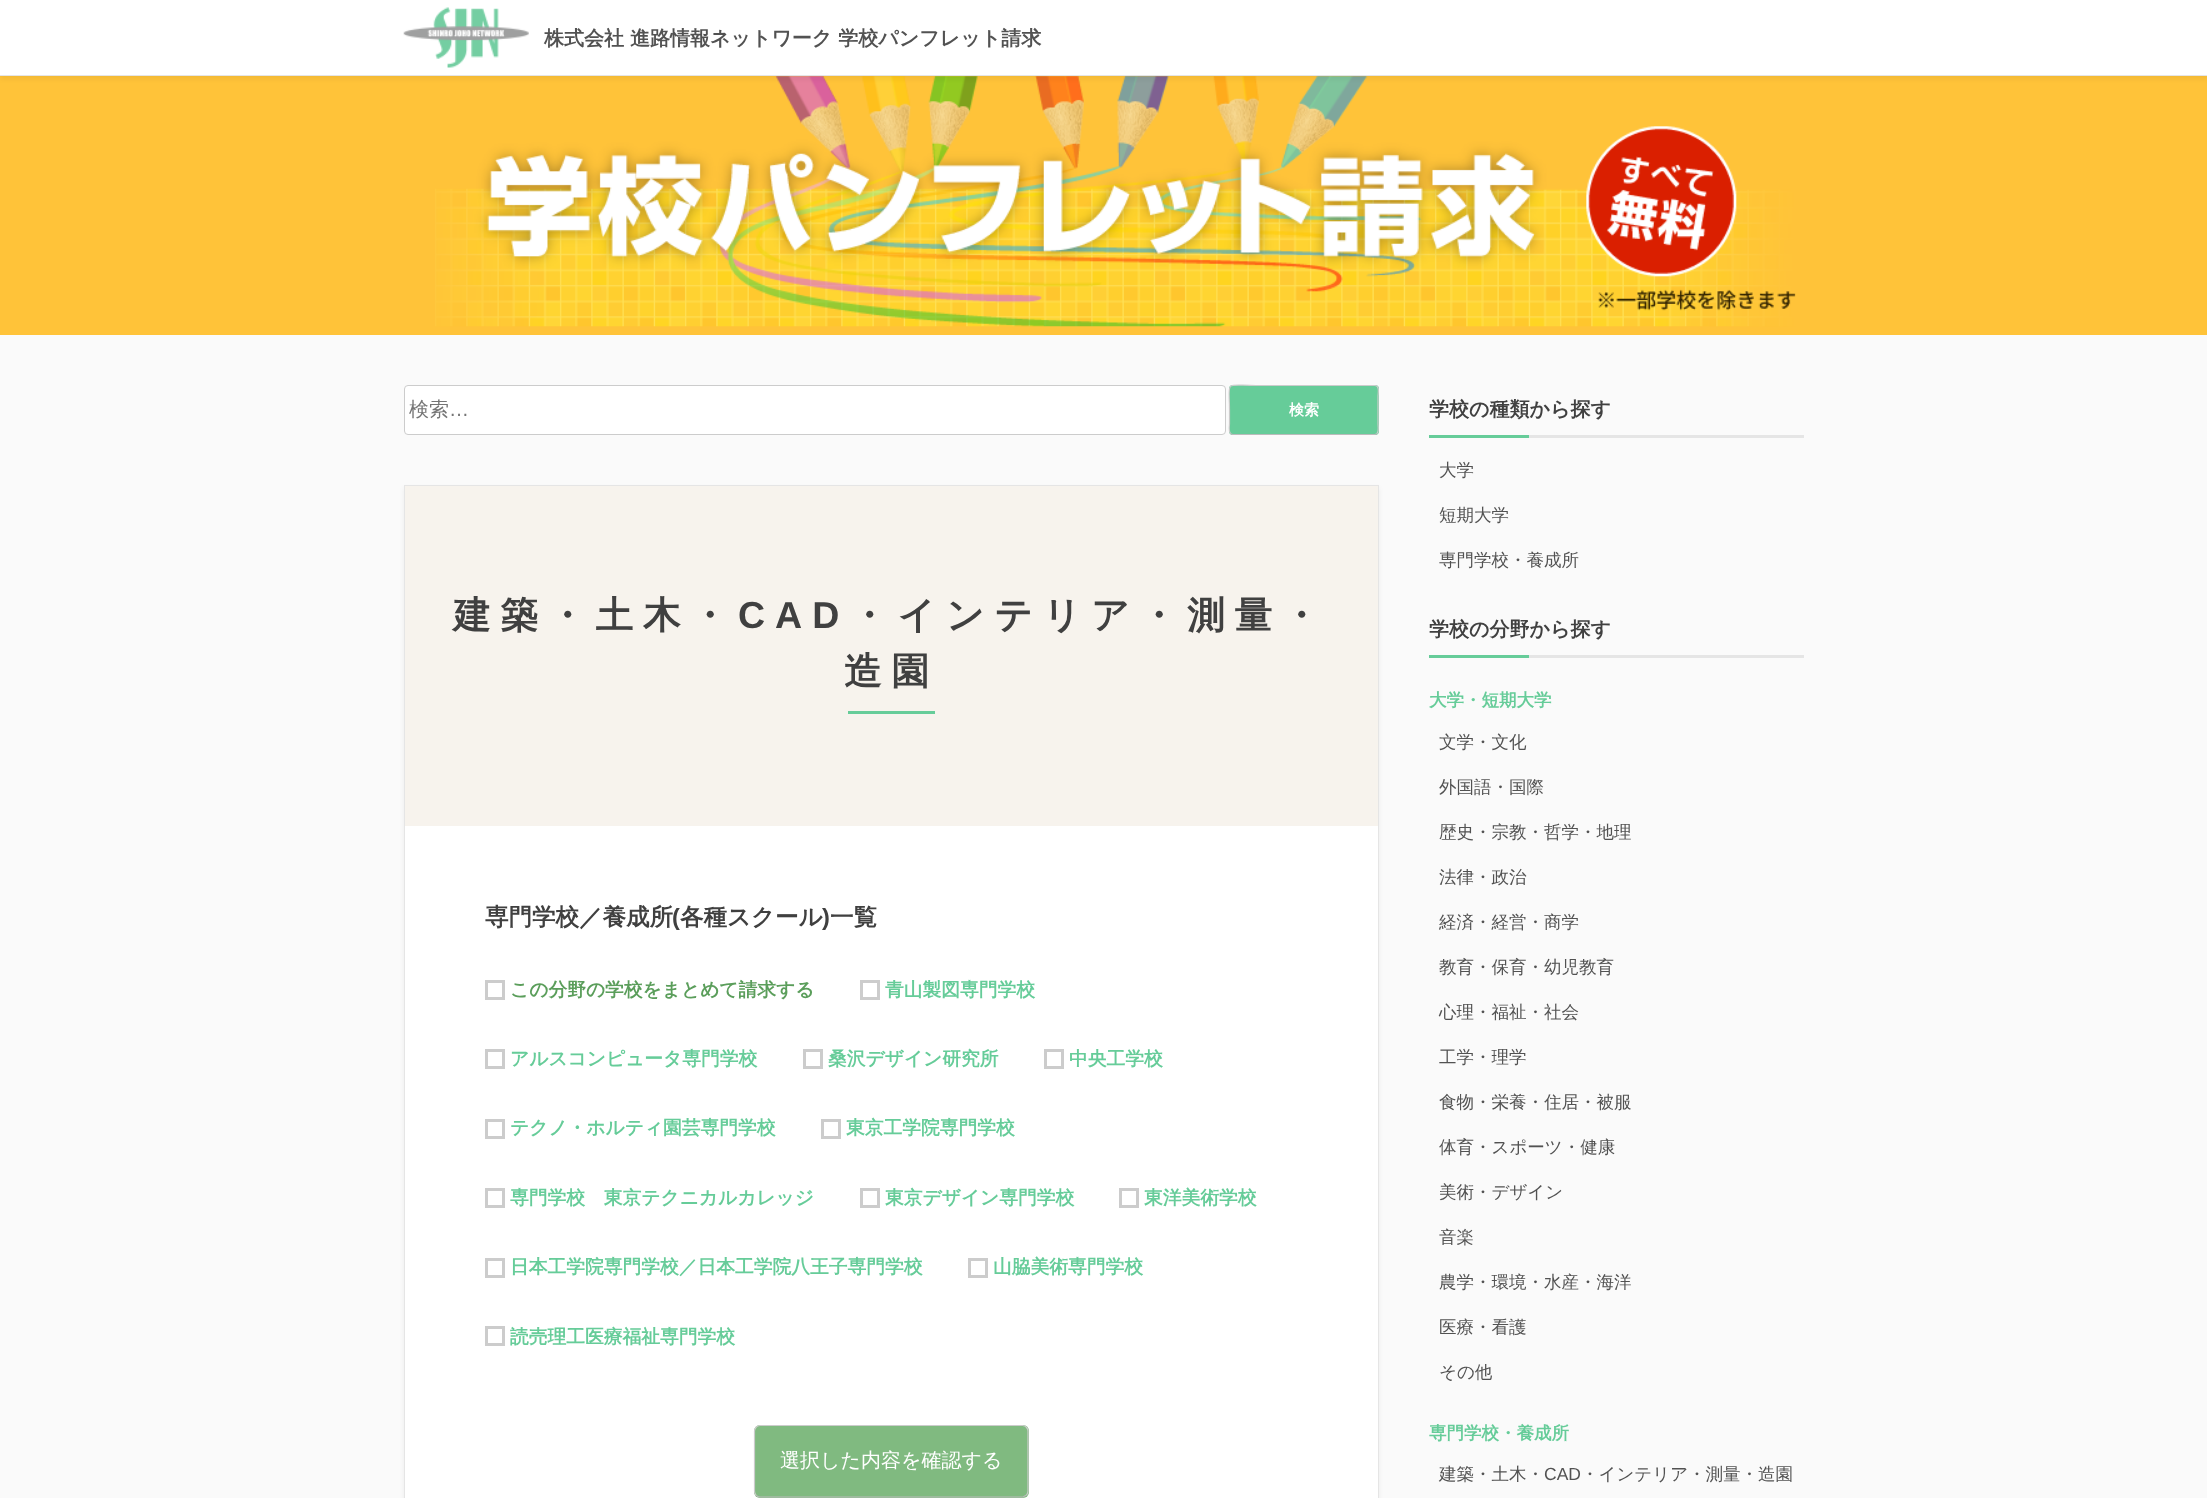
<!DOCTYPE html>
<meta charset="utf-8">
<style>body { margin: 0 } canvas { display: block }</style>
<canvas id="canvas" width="2207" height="1498"></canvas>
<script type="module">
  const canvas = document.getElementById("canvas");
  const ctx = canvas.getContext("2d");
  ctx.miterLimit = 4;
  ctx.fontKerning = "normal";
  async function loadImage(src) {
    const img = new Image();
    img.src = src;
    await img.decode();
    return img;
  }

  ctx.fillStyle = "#fafafa";
  ctx.fillRect(0, 0, 2207, 1498);
  ctx.fillStyle = "#ffc339";
  ctx.fillRect(0, 76, 2207, 259);
  ctx.drawImage(await loadImage("img2.png"), 435, 76, 1361, 251);
  ctx.fillStyle = "rgba(0, 0, 0, 0.05)";
  ctx.filter = "blur(2.5px)";
  ctx.beginPath();
  ctx.rect(0, 3, 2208, 76);
  ctx.fill();
  ctx.filter = "none";
  ctx.fillStyle = "#ffffff";
  ctx.fillRect(0, 0, 2207, 75);
  ctx.fillStyle = "#e5e5e5";
  ctx.fillRect(0, 75, 2207, 1);
  ctx.drawImage(await loadImage("img1.png"), 403, 7, 126, 61);
  ctx.font = "bold 20px WenQuanYi Zen Hei";
  ctx.fillStyle = "#525252";
  ctx.fillText("株式会社 進路情報ネットワーク 学校パンフレット請求", 544, 45);
  ctx.fillStyle = "#ffffff";
  ctx.beginPath();
  ctx.roundRect(404.5, 385.5, 821, 49, 3.5);
  ctx.fill();
  ctx.strokeStyle = "#cccccc";
  ctx.stroke();
  ctx.font = "500 20px WenQuanYi Zen Hei";
  ctx.fillStyle = "#757575";
  ctx.fillText("検索", 409, 416);
  ctx.font = "20px Liberation Sans";
  ctx.fillText("…", 449, 416);
  ctx.fillStyle = "#66cc99";
  ctx.beginPath();
  ctx.roundRect(1229, 385, 150, 50, 4);
  ctx.fill();
  ctx.beginPath();
  ctx.moveTo(1377, 433.5);
  ctx.lineTo(1375, 434.5);
  ctx.lineTo(1232.5, 434.5);
  ctx.lineTo(1230.5, 433.5);
  ctx.strokeStyle = "#bbbbbb";
  ctx.lineWidth = 1.2;
  ctx.stroke();
  ctx.beginPath();
  ctx.moveTo(1230.5, 433.5);
  ctx.bezierCurveTo(1228.5, 431.5, 1229.5, 425, 1229.5, 424);
  ctx.lineTo(1229.5, 410);
  ctx.bezierCurveTo(1229.5, 379.5, 1223.5, 385.5, 1256, 385.5);
  ctx.lineTo(1375, 385.5);
  ctx.bezierCurveTo(1380, 385.5, 1378, 394, 1378, 396);
  ctx.lineTo(1378, 424);
  ctx.bezierCurveTo(1378, 425, 1379, 431.5, 1377, 433.5);
  ctx.strokeStyle = "#cccccc";
  ctx.stroke();
  ctx.font = "bold 15px WenQuanYi Zen Hei";
  ctx.fillStyle = "#ffffff";
  ctx.fillText("検索", 1289, 415);
  ctx.fillStyle = "rgba(0, 0, 0, 0.05)";
  ctx.filter = "blur(2.5px)";
  ctx.beginPath();
  ctx.rect(404, 488, 975, 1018);
  ctx.fill();
  ctx.filter = "none";
  ctx.fillStyle = "#ffffff";
  ctx.fillRect(405, 826, 973, 672);
  ctx.strokeStyle = "#e5e5e5";
  ctx.lineWidth = 1;
  ctx.strokeRect(404.5, 485.5, 974, 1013);
  ctx.fillStyle = "#f7f3ed";
  ctx.fillRect(405, 486, 973, 340);
  ctx.letterSpacing = "10px";
  ctx.font = "bold 37.5px WenQuanYi Zen Hei";
  ctx.fillStyle = "#404040";
  ctx.fillText("建築・土木・", 453, 628);
  ctx.font = "bold 37.5px Liberation Sans";
  ctx.fillText("CAD", 738, 628);
  ctx.font = "bold 37.5px WenQuanYi Zen Hei";
  ctx.fillText("・インテリア・測量・", 850, 628);
  ctx.fillText("造園", 844, 684);
  ctx.fillStyle = "#66cc99";
  ctx.fillRect(848, 711, 87, 3);
  ctx.letterSpacing = "0px";
  ctx.font = "bold 23.5px WenQuanYi Zen Hei";
  ctx.fillStyle = "#404040";
  ctx.fillText("専門学校／養成所", 485, 925);
  ctx.font = "bold 23.5px Liberation Sans";
  ctx.fillText("(", 672, 925);
  ctx.font = "bold 23.5px WenQuanYi Zen Hei";
  ctx.fillText("各種スクール", 680, 925);
  ctx.font = "bold 23.5px Liberation Sans";
  ctx.fillText(")", 822, 925);
  ctx.font = "bold 23.5px WenQuanYi Zen Hei";
  ctx.fillText("一覧", 830, 925);
  ctx.strokeStyle = "#cccccc";
  ctx.lineWidth = 3;
  ctx.strokeRect(486.5, 981.5, 17, 17);
  ctx.font = "bold 18.75px WenQuanYi Zen Hei";
  ctx.fillStyle = "#5b9e5b";
  ctx.fillText("この分野の学校をまとめて請求する", 510, 996);
  ctx.strokeRect(861.5, 981.5, 17, 17);
  ctx.fillStyle = "#66cc99";
  ctx.fillText("青山製図専門学校", 885, 996);
  ctx.strokeRect(486.5, 1050.5, 17, 17);
  ctx.fillText("アルスコンピュータ専門学校", 510, 1065);
  ctx.strokeRect(804.5, 1050.5, 17, 17);
  ctx.fillText("桑沢デザイン研究所", 828, 1065);
  ctx.strokeRect(1045.5, 1050.5, 17, 17);
  ctx.fillText("中央工学校", 1069, 1065);
  ctx.strokeRect(486.5, 1120.5, 17, 17);
  ctx.fillText("テクノ・ホルティ園芸専門学校", 510, 1134);
  ctx.strokeRect(822.5, 1120.5, 17, 17);
  ctx.fillText("東京工学院専門学校", 846, 1134);
  ctx.strokeRect(486.5, 1189.5, 17, 17);
  ctx.fillText("専門学校　東京テクニカルカレッジ", 510, 1204);
  ctx.strokeRect(861.5, 1189.5, 17, 17);
  ctx.fillText("東京デザイン専門学校", 885, 1204);
  ctx.strokeRect(1120.5, 1189.5, 17, 17);
  ctx.fillText("東洋美術学校", 1144, 1204);
  ctx.strokeRect(486.5, 1259.5, 17, 17);
  ctx.fillText("日本工学院専門学校／日本工学院八王子専門学校", 510, 1273);
  ctx.strokeRect(969.5, 1259.5, 17, 17);
  ctx.fillText("山脇美術専門学校", 993, 1273);
  ctx.strokeRect(486.5, 1327.5, 17, 17);
  ctx.fillText("読売理工医療福祉専門学校", 510, 1343);
  ctx.fillStyle = "#80ba80";
  ctx.beginPath();
  ctx.roundRect(754, 1425, 275, 73, 6);
  ctx.fill();
  ctx.beginPath();
  ctx.moveTo(1026.5, 1495);
  ctx.lineTo(1023, 1497);
  ctx.lineTo(760, 1497);
  ctx.bezierCurveTo(758.5, 1497, 757, 1496.5, 756, 1495);
  ctx.strokeStyle = "#bbbbbb";
  ctx.lineWidth = 1.2;
  ctx.stroke();
  ctx.beginPath();
  ctx.moveTo(756, 1495);
  ctx.bezierCurveTo(755, 1494, 754.5, 1492.5, 754.5, 1491);
  ctx.lineTo(754.5, 1431);
  ctx.bezierCurveTo(754.5, 1430, 755, 1428.5, 756, 1427.5);
  ctx.bezierCurveTo(757, 1426, 758.5, 1425.5, 760, 1425.5);
  ctx.lineTo(1022.5, 1425.5);
  ctx.bezierCurveTo(1024, 1425.5, 1025.5, 1426, 1026.5, 1427.5);
  ctx.bezierCurveTo(1027.5, 1428.5, 1028, 1430, 1028, 1431);
  ctx.lineTo(1028, 1491);
  ctx.bezierCurveTo(1028, 1492.5, 1027.5, 1494, 1026.5, 1495);
  ctx.strokeStyle = "#cccccc";
  ctx.stroke();
  ctx.font = "500 20px WenQuanYi Zen Hei";
  ctx.fillStyle = "#ffffff";
  ctx.fillText("選択した内容を確認する", 780, 1467);
  ctx.fillStyle = "#e5e5e5";
  ctx.fillRect(1529, 435, 275, 3);
  ctx.font = "bold 20px WenQuanYi Zen Hei";
  ctx.fillStyle = "#404040";
  ctx.fillText("学校の種類から探す", 1429, 416);
  ctx.fillStyle = "#66cc99";
  ctx.fillRect(1429, 435, 100, 3);
  ctx.font = "500 17.5px WenQuanYi Zen Hei";
  ctx.fillStyle = "#525252";
  ctx.fillText("大学", 1439, 476);
  ctx.fillText("短期大学", 1439, 521);
  ctx.fillText("専門学校・養成所", 1439, 566);
  ctx.fillStyle = "#e5e5e5";
  ctx.fillRect(1529, 655, 275, 3);
  ctx.font = "bold 20px WenQuanYi Zen Hei";
  ctx.fillStyle = "#404040";
  ctx.fillText("学校の分野から探す", 1429, 636);
  ctx.fillStyle = "#66cc99";
  ctx.fillRect(1429, 655, 100, 3);
  ctx.font = "bold 17.5px WenQuanYi Zen Hei";
  ctx.fillText("大学・短期大学", 1429, 706);
  ctx.font = "500 17.5px WenQuanYi Zen Hei";
  ctx.fillStyle = "#525252";
  ctx.fillText("文学・文化", 1439, 748);
  ctx.fillText("外国語・国際", 1439, 793);
  ctx.fillText("歴史・宗教・哲学・地理", 1439, 838);
  ctx.fillText("法律・政治", 1439, 883);
  ctx.fillText("経済・経営・商学", 1439, 928);
  ctx.fillText("教育・保育・幼児教育", 1439, 973);
  ctx.fillText("心理・福祉・社会", 1439, 1018);
  ctx.fillText("工学・理学", 1439, 1063);
  ctx.fillText("食物・栄養・住居・被服", 1439, 1108);
  ctx.fillText("体育・スポーツ・健康", 1439, 1153);
  ctx.fillText("美術・デザイン", 1439, 1198);
  ctx.fillText("音楽", 1439, 1243);
  ctx.fillText("農学・環境・水産・海洋", 1439, 1288);
  ctx.fillText("医療・看護", 1439, 1333);
  ctx.fillText("その他", 1439, 1378);
  ctx.font = "bold 17.5px WenQuanYi Zen Hei";
  ctx.fillStyle = "#66cc99";
  ctx.fillText("専門学校・養成所", 1429, 1439);
  ctx.font = "500 17.5px WenQuanYi Zen Hei";
  ctx.fillStyle = "#525252";
  ctx.fillText("建築・土木・", 1439, 1480);
  ctx.font = "17.5px Liberation Sans";
  ctx.fillText("CAD", 1544, 1480);
  ctx.font = "500 17.5px WenQuanYi Zen Hei";
  ctx.fillText("・インテリア・測量・造園", 1581, 1480);
</script>
